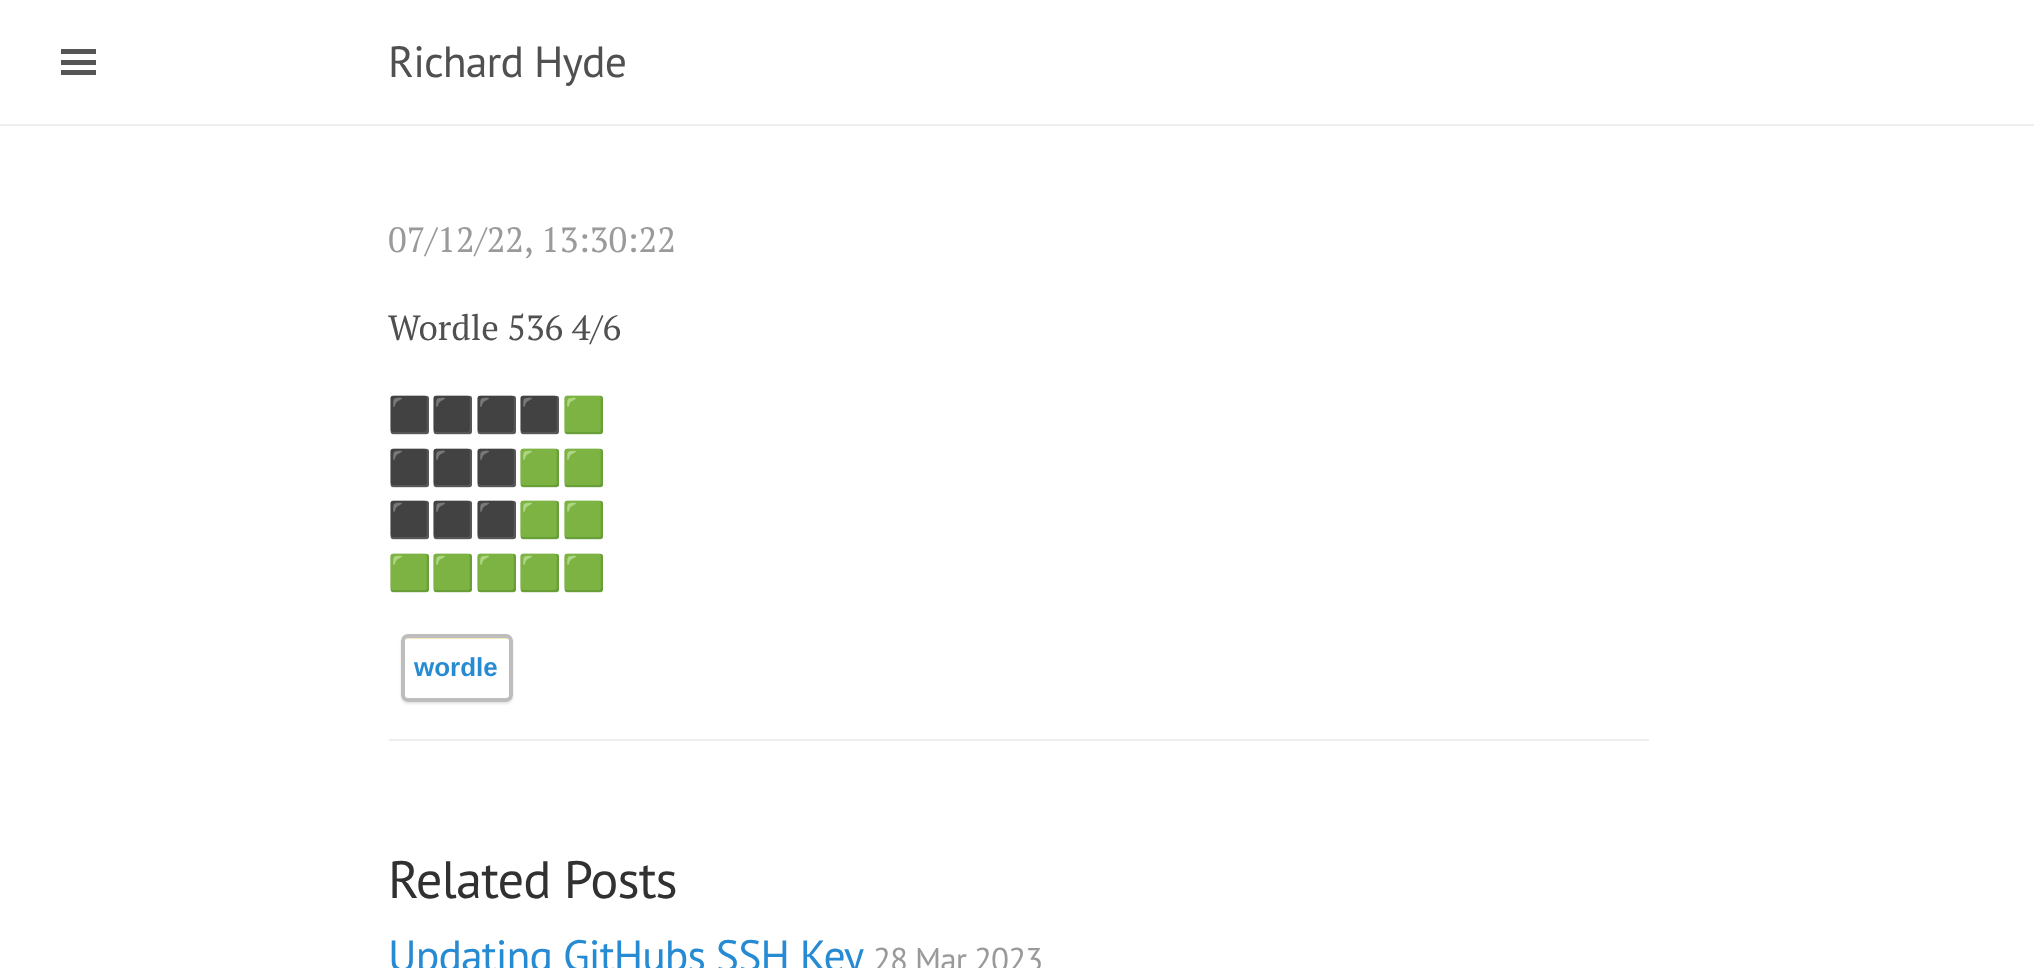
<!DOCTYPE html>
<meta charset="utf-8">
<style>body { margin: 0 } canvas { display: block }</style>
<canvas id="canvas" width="2034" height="968"></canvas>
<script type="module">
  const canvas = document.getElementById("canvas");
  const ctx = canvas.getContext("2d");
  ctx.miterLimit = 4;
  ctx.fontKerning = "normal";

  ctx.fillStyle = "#ffffff";
  ctx.fillRect(0, 0, 2034, 968);
  ctx.fillStyle = "#555555";
  ctx.fillRect(61, 49, 35, 5);
  ctx.fillRect(61, 60, 35, 5);
  ctx.fillRect(61, 70, 35, 5);
  ctx.fillStyle = "#eeeeee";
  ctx.fillRect(0, 124, 2034, 2);
  ctx.letterSpacing = "-0.9px";
  ctx.font = "43.75px PT Sans";
  ctx.fillStyle = "#505050";
  ctx.fillText("Richard Hyde", 388, 77);
  ctx.letterSpacing = "0px";
  ctx.font = "35px PT Serif";
  ctx.fillStyle = "#9a9a9a";
  ctx.fillText("07/12/22, 13:30:22", 388, 252);
  ctx.fillStyle = "#505050";
  ctx.fillText("Wordle 536 4/6", 388, 340);
  ctx.font = "35px Noto Color Emoji";
  ctx.fillText("⬛⬛⬛⬛🟩", 388, 427);
  ctx.fillText("⬛⬛⬛🟩🟩", 388, 480);
  ctx.fillText("⬛⬛⬛🟩🟩", 388, 532);
  ctx.fillText("🟩🟩🟩🟩🟩", 388, 585);
  ctx.save();
  ctx.beginPath();
  ctx.moveTo(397, 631);
  ctx.lineTo(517, 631);
  ctx.lineTo(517, 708);
  ctx.lineTo(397, 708);
  ctx.closePath();
  ctx.moveTo(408, 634);
  ctx.lineTo(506, 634);
  ctx.bezierCurveTo(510, 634, 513, 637, 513, 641);
  ctx.lineTo(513, 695);
  ctx.bezierCurveTo(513, 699, 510, 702, 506, 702);
  ctx.lineTo(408, 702);
  ctx.bezierCurveTo(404, 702, 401, 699, 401, 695);
  ctx.lineTo(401, 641);
  ctx.bezierCurveTo(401, 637, 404, 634, 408, 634);
  ctx.closePath();
  ctx.clip("evenodd");
  ctx.fillStyle = "rgba(0, 0, 0, 0.1)";
  ctx.filter = "blur(1px)";
  ctx.beginPath();
  ctx.roundRect(401, 635, 112, 69, 7);
  ctx.fill();
  ctx.filter = "none";
  ctx.restore();
  ctx.fillStyle = "#faeaba";
  ctx.beginPath();
  ctx.moveTo(407, 639);
  ctx.lineTo(506, 639);
  ctx.bezierCurveTo(508, 639, 509, 640, 509, 642);
  ctx.bezierCurveTo(509, 633, 493, 637, 489, 637);
  ctx.lineTo(424, 637);
  ctx.bezierCurveTo(420, 637, 404, 633, 404, 642);
  ctx.bezierCurveTo(404, 640, 406, 639, 407, 639);
  ctx.closePath();
  ctx.fill();
  ctx.beginPath();
  ctx.roundRect(403, 636, 108, 64, 5);
  ctx.strokeStyle = "#bdbdbd";
  ctx.lineWidth = 4;
  ctx.stroke();
  ctx.font = "bold 26px Liberation Sans";
  ctx.fillStyle = "#268bd2";
  ctx.fillText("wordle", 414, 676);
  ctx.fillStyle = "#eeeeee";
  ctx.fillRect(389, 739, 1260, 2);
  ctx.letterSpacing = "-0.9px";
  ctx.font = "52.5px PT Sans";
  ctx.fillStyle = "#313131";
  ctx.fillText("Related Posts", 388, 898);
  ctx.font = "43.75px PT Sans";
  ctx.fillStyle = "#268bd2";
  ctx.fillText("Updating GitHubs SSH Key", 388, 971);
  ctx.font = "33px PT Sans";
  ctx.fillStyle = "#9a9a9a";
  ctx.fillText("28 Mar 2023", 873, 971);
</script>
